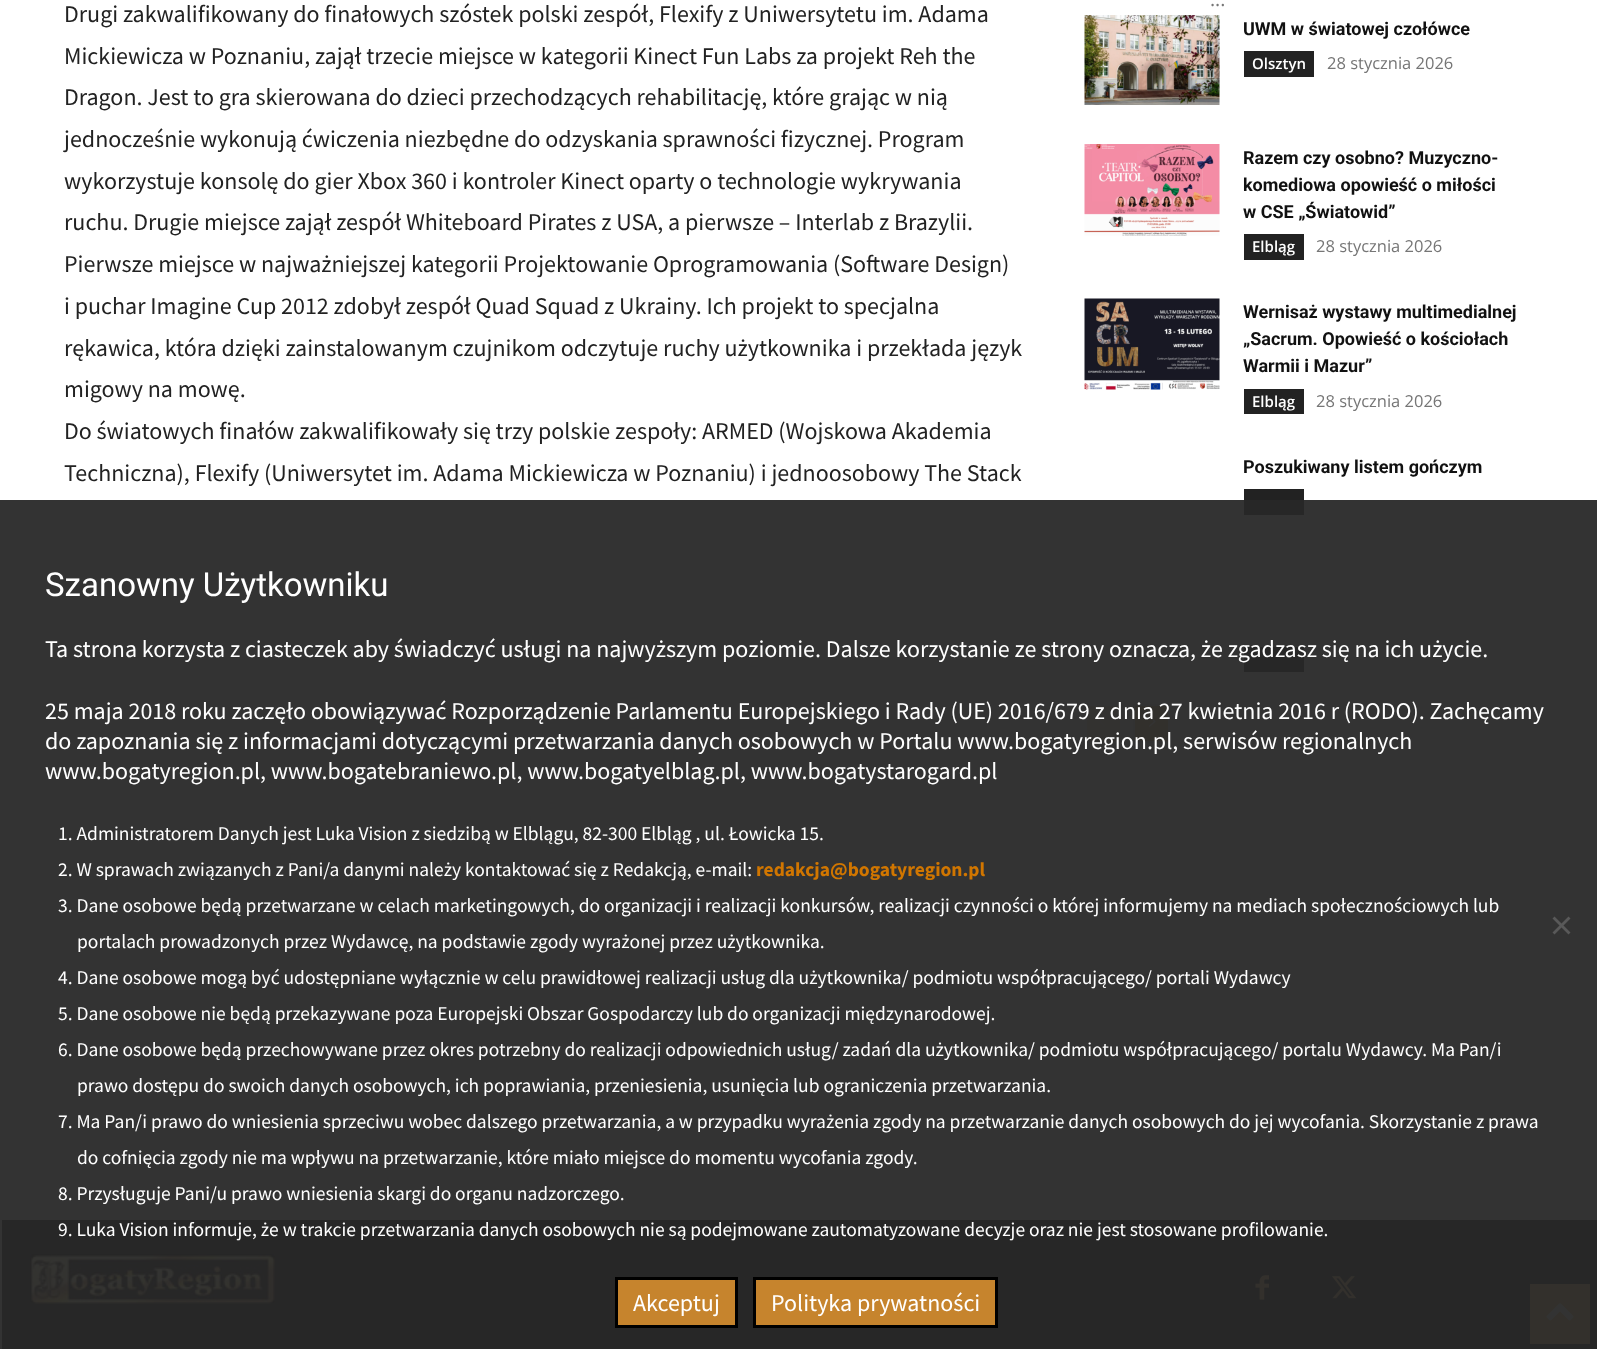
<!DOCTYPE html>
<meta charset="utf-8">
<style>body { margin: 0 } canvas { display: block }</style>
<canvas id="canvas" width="1597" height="1349"></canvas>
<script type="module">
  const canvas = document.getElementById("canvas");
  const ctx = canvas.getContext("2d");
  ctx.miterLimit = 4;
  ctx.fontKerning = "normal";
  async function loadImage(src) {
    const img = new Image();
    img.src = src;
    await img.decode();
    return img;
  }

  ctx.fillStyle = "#ffffff";
  ctx.fillRect(0, 0, 1597, 1349);
  ctx.font = "24px Source Sans Pro";
  ctx.fillStyle = "#222222";
  ctx.fillText("Drugi zakwalifikowany do finałowych szóstek polski zespół, Flexify z Uniwersytetu im. Adama", 64, 22);
  ctx.fillText("Mickiewicza w Poznaniu, zajął trzecie miejsce w kategorii Kinect Fun Labs za projekt Reh the", 64, 64);
  ctx.fillText("Dragon. Jest to gra skierowana do dzieci przechodzących rehabilitację, które grając w nią", 64, 105);
  ctx.fillText("jednocześnie wykonują ćwiczenia niezbędne do odzyskania sprawności fizycznej. Program", 64, 147);
  ctx.fillText("wykorzystuje konsolę do gier Xbox 360 i kontroler Kinect oparty o technologie wykrywania", 64, 189);
  ctx.fillText("ruchu. Drugie miejsce zajął zespół Whiteboard Pirates z USA, a pierwsze – Interlab z Brazylii.", 64, 230);
  ctx.fillText("Pierwsze miejsce w najważniejszej kategorii Projektowanie Oprogramowania (Software Design)", 64, 272);
  ctx.fillText("i puchar Imagine Cup 2012 zdobył zespół Quad Squad z Ukrainy. Ich projekt to specjalna", 64, 314);
  ctx.fillText("rękawica, która dzięki zainstalowanym czujnikom odczytuje ruchy użytkownika i przekłada język", 64, 356);
  ctx.fillText("migowy na mowę.", 64, 397);
  ctx.fillText("Do światowych finałów zakwalifikowały się trzy polskie zespoły: ARMED (Wojskowa Akademia", 64, 439);
  ctx.fillText("Techniczna), Flexify (Uniwersytet im. Adama Mickiewicza w Poznaniu) i jednoosobowy The Stack", 64, 481);
  ctx.font = "19.5px Open Sans";
  ctx.fillStyle = "#767676";
  ctx.fillText("...", 1210, 6);
  ctx.drawImage(await loadImage("img1.png"), 1084, 15, 136, 90);
  ctx.font = "bold 18px Roboto";
  ctx.fillStyle = "#111111";
  ctx.fillText("UWM w światowej czołówce", 1243, 35);
  ctx.fillStyle = "#222222";
  ctx.fillRect(1244, 51, 70, 26);
  ctx.font = "600 15px Open Sans";
  ctx.fillStyle = "#ffffff";
  ctx.fillText("Olsztyn", 1252, 69);
  ctx.font = "16.5px Open Sans";
  ctx.fillStyle = "#767676";
  ctx.fillText("28 stycznia 2026", 1327, 69);
  ctx.drawImage(await loadImage("img2.png"), 1084, 144, 136, 92);
  ctx.font = "bold 18px Roboto";
  ctx.fillStyle = "#111111";
  ctx.fillText("Razem czy osobno? Muzyczno-", 1243, 164);
  ctx.fillText("komediowa opowieść o miłości", 1243, 191);
  ctx.fillText("w CSE „Światowid”", 1243, 218);
  ctx.fillStyle = "#222222";
  ctx.fillRect(1244, 234, 60, 26);
  ctx.font = "600 15px Open Sans";
  ctx.fillStyle = "#ffffff";
  ctx.fillText("Elbląg", 1252, 252);
  ctx.font = "16.5px Open Sans";
  ctx.fillStyle = "#767676";
  ctx.fillText("28 stycznia 2026", 1316, 252);
  ctx.drawImage(await loadImage("img3.png"), 1084, 298, 136, 92);
  ctx.font = "bold 18px Roboto";
  ctx.fillStyle = "#111111";
  ctx.fillText("Wernisaż wystawy multimedialnej", 1243, 318);
  ctx.fillText("„Sacrum. Opowieść o kościołach", 1243, 345);
  ctx.fillText("Warmii i Mazur”", 1243, 372);
  ctx.fillStyle = "#222222";
  ctx.fillRect(1244, 389, 60, 25);
  ctx.font = "600 15px Open Sans";
  ctx.fillStyle = "#ffffff";
  ctx.fillText("Elbląg", 1252, 407);
  ctx.font = "16.5px Open Sans";
  ctx.fillStyle = "#767676";
  ctx.fillText("28 stycznia 2026", 1316, 407);
  ctx.font = "bold 18px Roboto";
  ctx.fillStyle = "#111111";
  ctx.fillText("Poszukiwany listem gończym", 1243, 473);
  ctx.fillStyle = "#222222";
  ctx.fillRect(1244, 489, 60, 26);
  ctx.fillRect(1244, 647, 60, 25);
  ctx.fillStyle = "#f4dcb9";
  ctx.beginPath();
  ctx.rect(1086, 705, 35, 37);
  ctx.fill();
  ctx.strokeStyle = "#eeeeee";
  ctx.lineWidth = 2;
  ctx.stroke();
  ctx.drawImage(await loadImage("img4.png"), 1099, 716, 7, 11);
  ctx.fillStyle = "#e8b973";
  ctx.beginPath();
  ctx.rect(1134, 705, 35, 37);
  ctx.fill();
  ctx.strokeStyle = "#dcdcdc";
  ctx.stroke();
  ctx.drawImage(await loadImage("img5.png"), 1149, 716, 7, 11);
  ctx.fillStyle = "#222222";
  ctx.fillRect(2, 1220, 1595, 129);
  ctx.drawImage(await loadImage("img6.png"), 30, 1254, 245, 50);
  ctx.drawImage(await loadImage("img7.png"), 1255, 1275, 14, 25);
  ctx.drawImage(await loadImage("img8.png"), 1332, 1276, 25, 23);
  ctx.fillStyle = "#f2c777";
  ctx.fillRect(1530, 1284, 60, 60);
  ctx.drawImage(await loadImage("img9.png"), 1546, 1303, 28, 18);
  ctx.fillStyle = "rgba(40, 40, 40, 0.95)";
  ctx.fillRect(0, 500, 1597, 849);
  ctx.font = "33px Roboto";
  ctx.fillStyle = "#ffffff";
  ctx.fillText("Szanowny Użytkowniku", 45, 596);
  ctx.font = "24px Source Sans Pro";
  ctx.fillText("Ta strona korzysta z ciasteczek aby świadczyć usługi na najwyższym poziomie. Dalsze korzystanie ze strony oznacza, że zgadzasz się na ich użycie.", 45, 657);
  ctx.fillText("25 maja 2018 roku zaczęło obowiązywać Rozporządzenie Parlamentu Europejskiego i Rady (UE) 2016/679 z dnia 27 kwietnia 2016 r (RODO). Zachęcamy", 45, 719);
  ctx.fillText("do zapoznania się z informacjami dotyczącymi przetwarzania danych osobowych w Portalu www.bogatyregion.pl, serwisów regionalnych", 45, 749);
  ctx.fillText("www.bogatyregion.pl, www.bogatebraniewo.pl, www.bogatyelblag.pl, www.bogatystarogard.pl", 45, 779);
  ctx.font = "19.5px Source Sans Pro";
  ctx.fillText("1. Administratorem Danych jest Luka Vision z siedzibą w Elblągu, 82-300 Elbląg , ul. Łowicka 15.", 58, 840);
  ctx.fillText("2. W sprawach związanych z Pani/a danymi należy kontaktować się z Redakcją, e-mail:", 58, 876);
  ctx.font = "bold 19.5px Source Sans Pro";
  ctx.fillStyle = "#d17600";
  ctx.fillText("redakcja@bogatyregion.pl", 756, 876);
  ctx.font = "19.5px Source Sans Pro";
  ctx.fillStyle = "#ffffff";
  ctx.fillText("3. Dane osobowe będą przetwarzane w celach marketingowych, do organizacji i realizacji konkursów, realizacji czynności o której informujemy na mediach społecznościowych lub", 58, 912);
  ctx.fillText("portalach prowadzonych przez Wydawcę, na podstawie zgody wyrażonej przez użytkownika.", 77, 948);
  ctx.fillText("4. Dane osobowe mogą być udostępniane wyłącznie w celu prawidłowej realizacji usług dla użytkownika/ podmiotu współpracującego/ portali Wydawcy", 58, 984);
  ctx.fillText("5. Dane osobowe nie będą przekazywane poza Europejski Obszar Gospodarczy lub do organizacji międzynarodowej.", 58, 1020);
  ctx.fillText("6. Dane osobowe będą przechowywane przez okres potrzebny do realizacji odpowiednich usług/ zadań dla użytkownika/ podmiotu współpracującego/ portalu Wydawcy. Ma Pan/i", 58, 1056);
  ctx.fillText("prawo dostępu do swoich danych osobowych, ich poprawiania, przeniesienia, usunięcia lub ograniczenia przetwarzania.", 77, 1092);
  ctx.fillText("7. Ma Pan/i prawo do wniesienia sprzeciwu wobec dalszego przetwarzania, a w przypadku wyrażenia zgody na przetwarzanie danych osobowych do jej wycofania. Skorzystanie z prawa", 58, 1128);
  ctx.fillText("do cofnięcia zgody nie ma wpływu na przetwarzanie, które miało miejsce do momentu wycofania zgody.", 77, 1164);
  ctx.fillText("8. Przysługuje Pani/u prawo wniesienia skargi do organu nadzorczego.", 58, 1200);
  ctx.fillText("9. Luka Vision informuje, że w trakcie przetwarzania danych osobowych nie są podejmowane zautomatyzowane decyzje oraz nie jest stosowane profilowanie.", 58, 1236);
  ctx.fillStyle = "#595959";
  ctx.beginPath();
  ctx.moveTo(1568.5, 916.5);
  ctx.lineTo(1570.5, 918.5);
  ctx.lineTo(1554.5, 934.5);
  ctx.lineTo(1552.5, 932.5);
  ctx.closePath();
  ctx.fill();
  ctx.beginPath();
  ctx.moveTo(1552.5, 918.5);
  ctx.lineTo(1554.5, 916.5);
  ctx.lineTo(1570.5, 932.5);
  ctx.lineTo(1568.5, 934.5);
  ctx.closePath();
  ctx.fill();
  ctx.fillStyle = "#c6842d";
  ctx.beginPath();
  ctx.rect(616.5, 1278.5, 120, 48);
  ctx.fill();
  ctx.strokeStyle = "#000000";
  ctx.lineWidth = 3;
  ctx.stroke();
  ctx.font = "24px Source Sans Pro";
  ctx.fillStyle = "#ffffff";
  ctx.fillText("Akceptuj", 633, 1311);
  ctx.fillStyle = "#c6842d";
  ctx.beginPath();
  ctx.rect(754.5, 1278.5, 242, 48);
  ctx.fill();
  ctx.stroke();
  ctx.fillStyle = "#ffffff";
  ctx.fillText("Polityka prywatności", 771, 1311);
</script>
